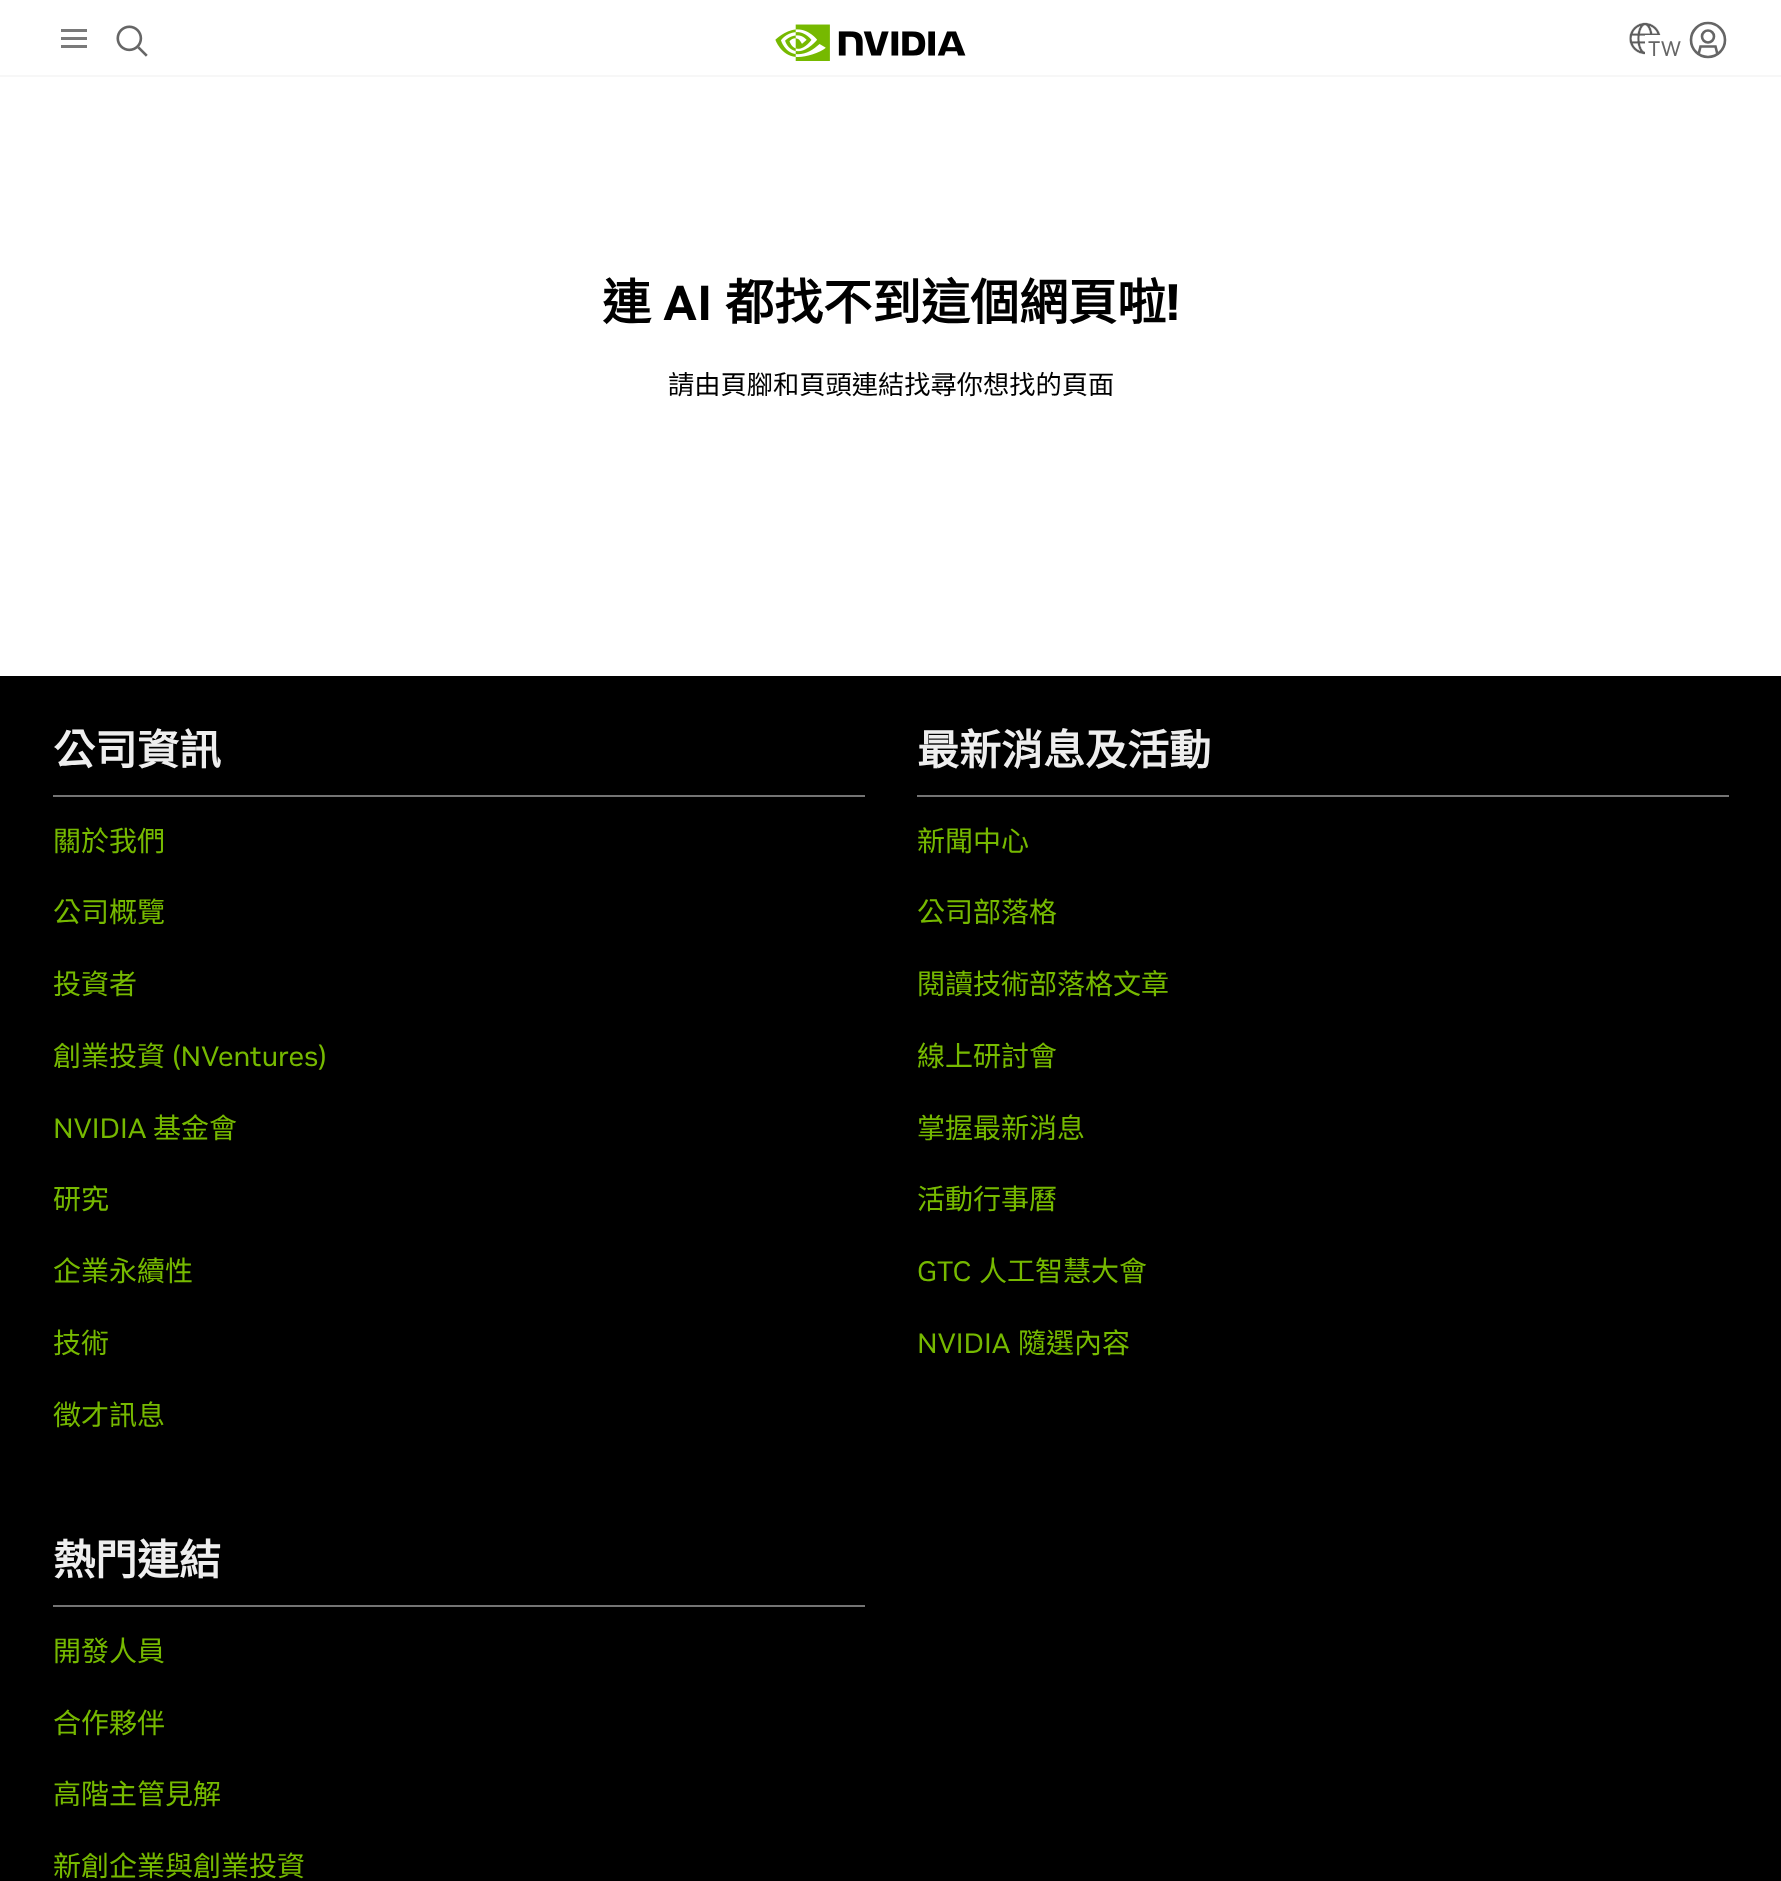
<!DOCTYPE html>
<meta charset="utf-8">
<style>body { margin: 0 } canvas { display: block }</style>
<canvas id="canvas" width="1781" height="1881"></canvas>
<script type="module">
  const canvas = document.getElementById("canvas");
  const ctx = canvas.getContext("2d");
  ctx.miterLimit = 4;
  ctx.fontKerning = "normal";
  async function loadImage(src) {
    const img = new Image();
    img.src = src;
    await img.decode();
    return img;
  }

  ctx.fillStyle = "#ffffff";
  ctx.fillRect(0, 0, 1781, 1881);
  ctx.fillStyle = "#f7f7f7";
  ctx.fillRect(0, 75, 1781, 2);
  ctx.fillStyle = "#7a7a7a";
  ctx.fillRect(61, 29, 26, 3);
  ctx.fillRect(61, 37, 26, 3);
  ctx.fillRect(61, 45, 26, 3);
  ctx.drawImage(await loadImage("img1.png"), 116, 25, 32, 32);
  ctx.drawImage(await loadImage("img2.png"), 775, 24, 191, 37);
  ctx.drawImage(await loadImage("img3.png"), 1629, 22, 32, 33);
  ctx.fillStyle = "#ffffff";
  ctx.fillRect(1645, 35, 16, 20);
  ctx.font = "21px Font";
  ctx.fillStyle = "#666666";
  ctx.fillText("TW", 1648, 56);
  ctx.beginPath();
  ctx.arc(1708, 40, 17, 0, Math.PI * 2);
  ctx.strokeStyle = "#666666";
  ctx.lineWidth = 2.6;
  ctx.stroke();
  ctx.beginPath();
  ctx.arc(1708, 36.5, 6, 0, Math.PI * 2);
  ctx.stroke();
  ctx.beginPath();
  ctx.moveTo(1717.5, 54.5);
  ctx.lineTo(1715.5, 46.5);
  ctx.lineTo(1700.5, 46.5);
  ctx.lineTo(1698.5, 54.5);
  ctx.stroke();
  ctx.font = "bold 49px Noto Sans CJK TC";
  ctx.fillStyle = "#000000";
  ctx.fillText("連", 602, 320);
  ctx.font = "bold 49px Font";
  ctx.fillText("AI", 663, 320);
  ctx.font = "bold 49px Noto Sans CJK TC";
  ctx.fillText("都找不到這個網頁啦", 725, 320);
  ctx.font = "bold 49px Font";
  ctx.fillText("!", 1166, 320);
  ctx.font = "26.25px Noto Sans CJK TC";
  ctx.fillText("請由頁腳和頁頭連結找尋你想找的頁面", 668, 394);
  ctx.fillRect(0, 676, 1781, 1205);
  ctx.fillStyle = "#747474";
  ctx.fillRect(53, 795, 812, 2);
  ctx.font = "bold 42px Noto Sans CJK TC";
  ctx.fillStyle = "#eeeeee";
  ctx.fillText("公司資訊", 53, 765);
  ctx.font = "28px Noto Sans CJK TC";
  ctx.fillStyle = "#76b900";
  ctx.fillText("關於我們", 53, 851);
  ctx.fillText("公司概覽", 53, 922);
  ctx.fillText("投資者", 53, 994);
  ctx.fillText("創業投資", 53, 1066);
  ctx.font = "28px Font";
  ctx.fillText("(NVentures)", 172, 1066);
  ctx.fillText("NVIDIA", 53, 1138);
  ctx.font = "28px Noto Sans CJK TC";
  ctx.fillText("基金會", 153, 1138);
  ctx.fillText("研究", 53, 1209);
  ctx.fillText("企業永續性", 53, 1281);
  ctx.fillText("技術", 53, 1353);
  ctx.fillText("徵才訊息", 53, 1425);
  ctx.fillStyle = "#747474";
  ctx.fillRect(917, 795, 812, 2);
  ctx.font = "bold 42px Noto Sans CJK TC";
  ctx.fillStyle = "#eeeeee";
  ctx.fillText("最新消息及活動", 917, 765);
  ctx.font = "28px Noto Sans CJK TC";
  ctx.fillStyle = "#76b900";
  ctx.fillText("新聞中心", 917, 851);
  ctx.fillText("公司部落格", 917, 922);
  ctx.fillText("閱讀技術部落格文章", 917, 994);
  ctx.fillText("線上研討會", 917, 1066);
  ctx.fillText("掌握最新消息", 917, 1138);
  ctx.fillText("活動行事曆", 917, 1209);
  ctx.font = "28px Font";
  ctx.fillText("GTC", 917, 1281);
  ctx.font = "28px Noto Sans CJK TC";
  ctx.fillText("人工智慧大會", 979, 1281);
  ctx.font = "28px Font";
  ctx.fillText("NVIDIA", 917, 1353);
  ctx.font = "28px Noto Sans CJK TC";
  ctx.fillText("隨選內容", 1018, 1353);
  ctx.fillStyle = "#747474";
  ctx.fillRect(53, 1605, 812, 2);
  ctx.font = "bold 42px Noto Sans CJK TC";
  ctx.fillStyle = "#eeeeee";
  ctx.fillText("熱門連結", 53, 1575);
  ctx.font = "28px Noto Sans CJK TC";
  ctx.fillStyle = "#76b900";
  ctx.fillText("開發人員", 53, 1661);
  ctx.fillText("合作夥伴", 53, 1733);
  ctx.fillText("高階主管見解", 53, 1804);
  ctx.fillText("新創企業與創業投資", 53, 1876);
</script>
